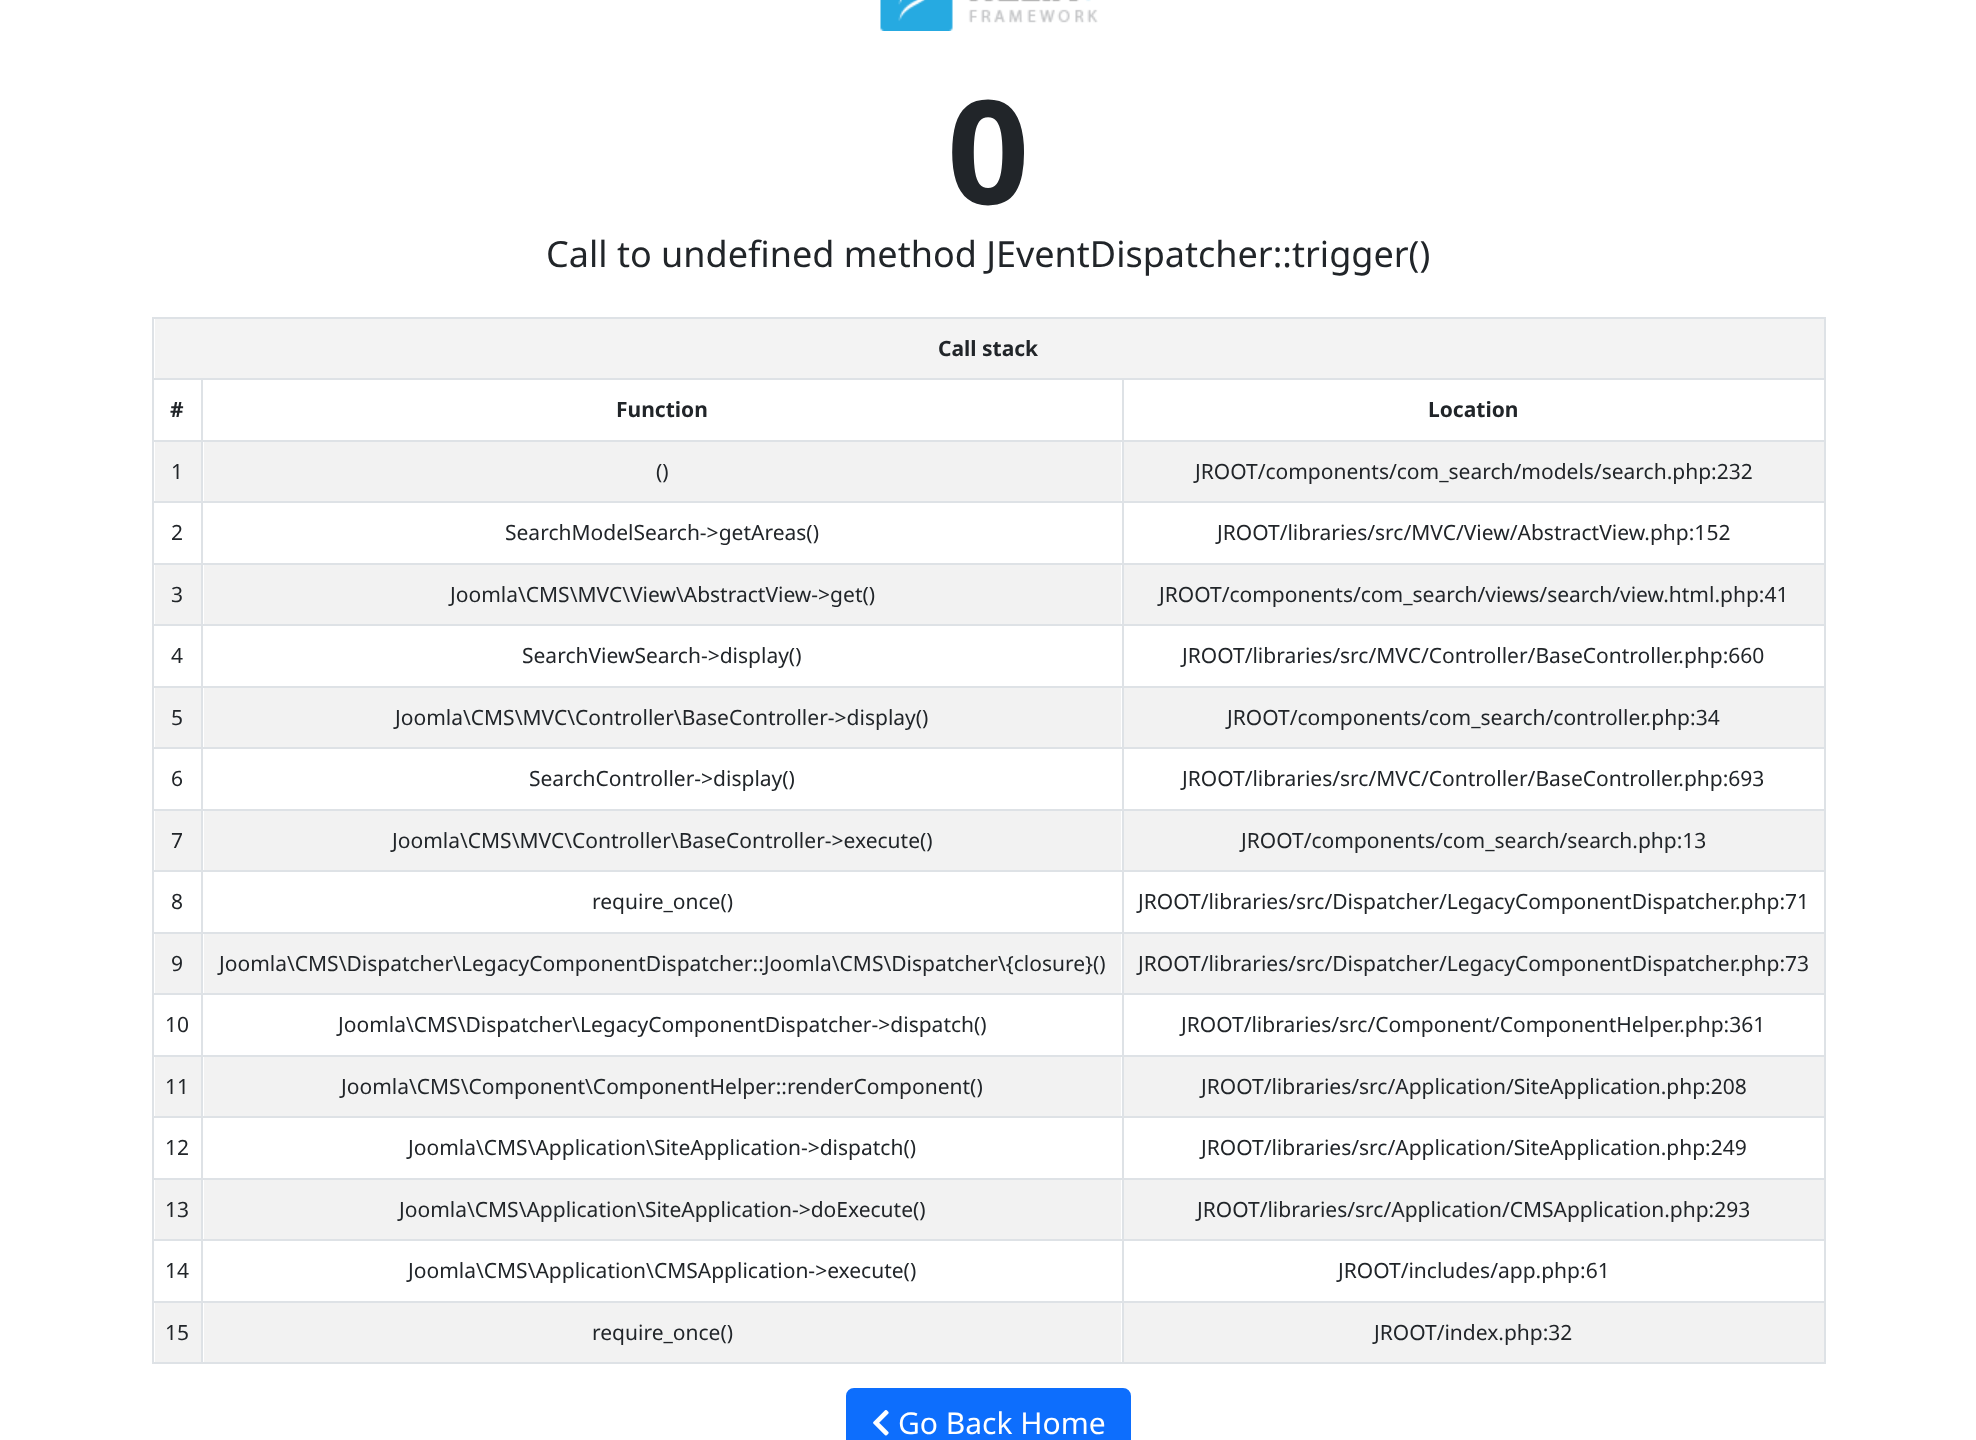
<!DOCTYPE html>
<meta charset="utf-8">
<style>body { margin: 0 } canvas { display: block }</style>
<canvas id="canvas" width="1976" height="1440"></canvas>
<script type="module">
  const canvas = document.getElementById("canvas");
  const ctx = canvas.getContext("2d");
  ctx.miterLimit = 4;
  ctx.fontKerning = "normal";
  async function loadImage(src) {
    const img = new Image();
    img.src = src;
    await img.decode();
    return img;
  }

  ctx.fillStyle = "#ffffff";
  ctx.fillRect(0, 0, 1976, 1440);
  ctx.drawImage(await loadImage("img1.png"), 880, 0, 218, 31);
  ctx.font = "bold 144px Noto Sans";
  ctx.fillStyle = "#212529";
  ctx.fillText("0", 947, 204);
  ctx.font = "36px Noto Sans";
  ctx.fillText("Call to undefined method JEventDispatcher::trigger()", 546, 267);
  ctx.fillStyle = "#dee2e6";
  ctx.fillRect(152, 317, 1674, 2);
  ctx.fillStyle = "#f3f3f3";
  ctx.fillRect(155, 319, 1669, 59);
  ctx.font = "bold 21px Noto Sans";
  ctx.fillStyle = "#212529";
  ctx.fillText("Call stack", 938, 356);
  ctx.fillStyle = "#dee2e6";
  ctx.fillRect(152, 378, 1674, 2);
  ctx.fillStyle = "#212529";
  ctx.fillText("#", 170, 417);
  ctx.fillText("Function", 616, 417);
  ctx.fillText("Location", 1428, 417);
  ctx.fillStyle = "#dee2e6";
  ctx.fillRect(152, 440, 1674, 2);
  ctx.fillStyle = "#f2f2f2";
  ctx.fillRect(155, 442, 46, 59);
  ctx.font = "21px Noto Sans";
  ctx.fillStyle = "#212529";
  ctx.fillText("1", 171, 479);
  ctx.fillStyle = "#f2f2f2";
  ctx.fillRect(204, 442, 917, 59);
  ctx.fillStyle = "#212529";
  ctx.fillText("()", 656, 479);
  ctx.fillStyle = "#f2f2f2";
  ctx.fillRect(1124, 442, 700, 59);
  ctx.fillStyle = "#212529";
  ctx.fillText("JROOT/components/com_search/models/search.php:232", 1195, 479);
  ctx.fillStyle = "#dee2e6";
  ctx.fillRect(152, 501, 1674, 2);
  ctx.fillStyle = "#212529";
  ctx.fillText("2", 171, 540);
  ctx.fillText("SearchModelSearch->getAreas()", 505, 540);
  ctx.fillText("JROOT/libraries/src/MVC/View/AbstractView.php:152", 1217, 540);
  ctx.fillStyle = "#dee2e6";
  ctx.fillRect(152, 563, 1674, 2);
  ctx.fillStyle = "#f2f2f2";
  ctx.fillRect(155, 565, 46, 59);
  ctx.fillStyle = "#212529";
  ctx.fillText("3", 171, 602);
  ctx.fillStyle = "#f2f2f2";
  ctx.fillRect(204, 565, 917, 59);
  ctx.fillStyle = "#212529";
  ctx.fillText("Joomla\\CMS\\MVC\\View\\AbstractView->get()", 450, 602);
  ctx.fillStyle = "#f2f2f2";
  ctx.fillRect(1124, 565, 700, 59);
  ctx.fillStyle = "#212529";
  ctx.fillText("JROOT/components/com_search/views/search/view.html.php:41", 1159, 602);
  ctx.fillStyle = "#dee2e6";
  ctx.fillRect(152, 624, 1674, 2);
  ctx.fillStyle = "#212529";
  ctx.fillText("4", 171, 663);
  ctx.fillText("SearchViewSearch->display()", 522, 663);
  ctx.fillText("JROOT/libraries/src/MVC/Controller/BaseController.php:660", 1182, 663);
  ctx.fillStyle = "#dee2e6";
  ctx.fillRect(152, 686, 1674, 2);
  ctx.fillStyle = "#f2f2f2";
  ctx.fillRect(155, 688, 46, 59);
  ctx.fillStyle = "#212529";
  ctx.fillText("5", 171, 725);
  ctx.fillStyle = "#f2f2f2";
  ctx.fillRect(204, 688, 917, 59);
  ctx.fillStyle = "#212529";
  ctx.fillText("Joomla\\CMS\\MVC\\Controller\\BaseController->display()", 395, 725);
  ctx.fillStyle = "#f2f2f2";
  ctx.fillRect(1124, 688, 700, 59);
  ctx.fillStyle = "#212529";
  ctx.fillText("JROOT/components/com_search/controller.php:34", 1227, 725);
  ctx.fillStyle = "#dee2e6";
  ctx.fillRect(152, 747, 1674, 2);
  ctx.fillStyle = "#212529";
  ctx.fillText("6", 171, 786);
  ctx.fillText("SearchController->display()", 529, 786);
  ctx.fillText("JROOT/libraries/src/MVC/Controller/BaseController.php:693", 1182, 786);
  ctx.fillStyle = "#dee2e6";
  ctx.fillRect(152, 809, 1674, 2);
  ctx.fillStyle = "#f2f2f2";
  ctx.fillRect(155, 811, 46, 59);
  ctx.fillStyle = "#212529";
  ctx.fillText("7", 171, 848);
  ctx.fillStyle = "#f2f2f2";
  ctx.fillRect(204, 811, 917, 59);
  ctx.fillStyle = "#212529";
  ctx.fillText("Joomla\\CMS\\MVC\\Controller\\BaseController->execute()", 392, 848);
  ctx.fillStyle = "#f2f2f2";
  ctx.fillRect(1124, 811, 700, 59);
  ctx.fillStyle = "#212529";
  ctx.fillText("JROOT/components/com_search/search.php:13", 1241, 848);
  ctx.fillStyle = "#dee2e6";
  ctx.fillRect(152, 870, 1674, 2);
  ctx.fillStyle = "#212529";
  ctx.fillText("8", 171, 909);
  ctx.fillText("require_once()", 592, 909);
  ctx.fillText("JROOT/libraries/src/Dispatcher/LegacyComponentDispatcher.php:71", 1138, 909);
  ctx.fillStyle = "#dee2e6";
  ctx.fillRect(152, 932, 1674, 2);
  ctx.fillStyle = "#f2f2f2";
  ctx.fillRect(155, 934, 46, 59);
  ctx.fillStyle = "#212529";
  ctx.fillText("9", 171, 971);
  ctx.fillStyle = "#f2f2f2";
  ctx.fillRect(204, 934, 917, 59);
  ctx.fillStyle = "#212529";
  ctx.fillText("Joomla\\CMS\\Dispatcher\\LegacyComponentDispatcher::Joomla\\CMS\\Dispatcher\\{closure}()", 219, 971);
  ctx.fillStyle = "#f2f2f2";
  ctx.fillRect(1124, 934, 700, 59);
  ctx.fillStyle = "#212529";
  ctx.fillText("JROOT/libraries/src/Dispatcher/LegacyComponentDispatcher.php:73", 1138, 971);
  ctx.fillStyle = "#dee2e6";
  ctx.fillRect(152, 993, 1674, 2);
  ctx.fillStyle = "#212529";
  ctx.fillText("10", 165, 1032);
  ctx.fillText("Joomla\\CMS\\Dispatcher\\LegacyComponentDispatcher->dispatch()", 338, 1032);
  ctx.fillText("JROOT/libraries/src/Component/ComponentHelper.php:361", 1181, 1032);
  ctx.fillStyle = "#dee2e6";
  ctx.fillRect(152, 1055, 1674, 2);
  ctx.fillStyle = "#f2f2f2";
  ctx.fillRect(155, 1057, 46, 59);
  ctx.fillStyle = "#212529";
  ctx.fillText("11", 165, 1094);
  ctx.fillStyle = "#f2f2f2";
  ctx.fillRect(204, 1057, 917, 59);
  ctx.fillStyle = "#212529";
  ctx.fillText("Joomla\\CMS\\Component\\ComponentHelper::renderComponent()", 341, 1094);
  ctx.fillStyle = "#f2f2f2";
  ctx.fillRect(1124, 1057, 700, 59);
  ctx.fillStyle = "#212529";
  ctx.fillText("JROOT/libraries/src/Application/SiteApplication.php:208", 1201, 1094);
  ctx.fillStyle = "#dee2e6";
  ctx.fillRect(152, 1116, 1674, 2);
  ctx.fillStyle = "#212529";
  ctx.fillText("12", 165, 1155);
  ctx.fillText("Joomla\\CMS\\Application\\SiteApplication->dispatch()", 408, 1155);
  ctx.fillText("JROOT/libraries/src/Application/SiteApplication.php:249", 1201, 1155);
  ctx.fillStyle = "#dee2e6";
  ctx.fillRect(152, 1178, 1674, 2);
  ctx.fillStyle = "#f2f2f2";
  ctx.fillRect(155, 1180, 46, 59);
  ctx.fillStyle = "#212529";
  ctx.fillText("13", 165, 1217);
  ctx.fillStyle = "#f2f2f2";
  ctx.fillRect(204, 1180, 917, 59);
  ctx.fillStyle = "#212529";
  ctx.fillText("Joomla\\CMS\\Application\\SiteApplication->doExecute()", 399, 1217);
  ctx.fillStyle = "#f2f2f2";
  ctx.fillRect(1124, 1180, 700, 59);
  ctx.fillStyle = "#212529";
  ctx.fillText("JROOT/libraries/src/Application/CMSApplication.php:293", 1197, 1217);
  ctx.fillStyle = "#dee2e6";
  ctx.fillRect(152, 1239, 1674, 2);
  ctx.fillStyle = "#212529";
  ctx.fillText("14", 165, 1278);
  ctx.fillText("Joomla\\CMS\\Application\\CMSApplication->execute()", 408, 1278);
  ctx.fillText("JROOT/includes/app.php:61", 1338, 1278);
  ctx.fillStyle = "#dee2e6";
  ctx.fillRect(152, 1301, 1674, 2);
  ctx.fillRect(152, 1362, 1674, 2);
  ctx.fillStyle = "#f2f2f2";
  ctx.fillRect(155, 1303, 46, 59);
  ctx.fillStyle = "#dee2e6";
  ctx.fillRect(152, 317, 2, 1047);
  ctx.fillStyle = "#212529";
  ctx.fillText("15", 165, 1340);
  ctx.fillStyle = "#f2f2f2";
  ctx.fillRect(204, 1303, 917, 59);
  ctx.fillStyle = "#dee2e6";
  ctx.fillRect(201, 378, 2, 986);
  ctx.fillStyle = "#212529";
  ctx.fillText("require_once()", 592, 1340);
  ctx.fillStyle = "#f2f2f2";
  ctx.fillRect(1124, 1303, 700, 59);
  ctx.fillStyle = "#dee2e6";
  ctx.fillRect(1824, 317, 2, 1047);
  ctx.fillRect(1122, 378, 2, 986);
  ctx.fillStyle = "#212529";
  ctx.fillText("JROOT/index.php:32", 1374, 1340);
  ctx.fillStyle = "#0d6efd";
  ctx.beginPath();
  ctx.roundRect(847, 1389, 283, 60, 7);
  ctx.fill();
  ctx.strokeStyle = "#0d6efd";
  ctx.lineWidth = 2;
  ctx.stroke();
  ctx.drawImage(await loadImage("img2.png"), 873, 1410, 16, 26);
  ctx.font = "30px Noto Sans";
  ctx.fillStyle = "#ffffff";
  ctx.fillText("Go Back Home", 898, 1434);
</script>
